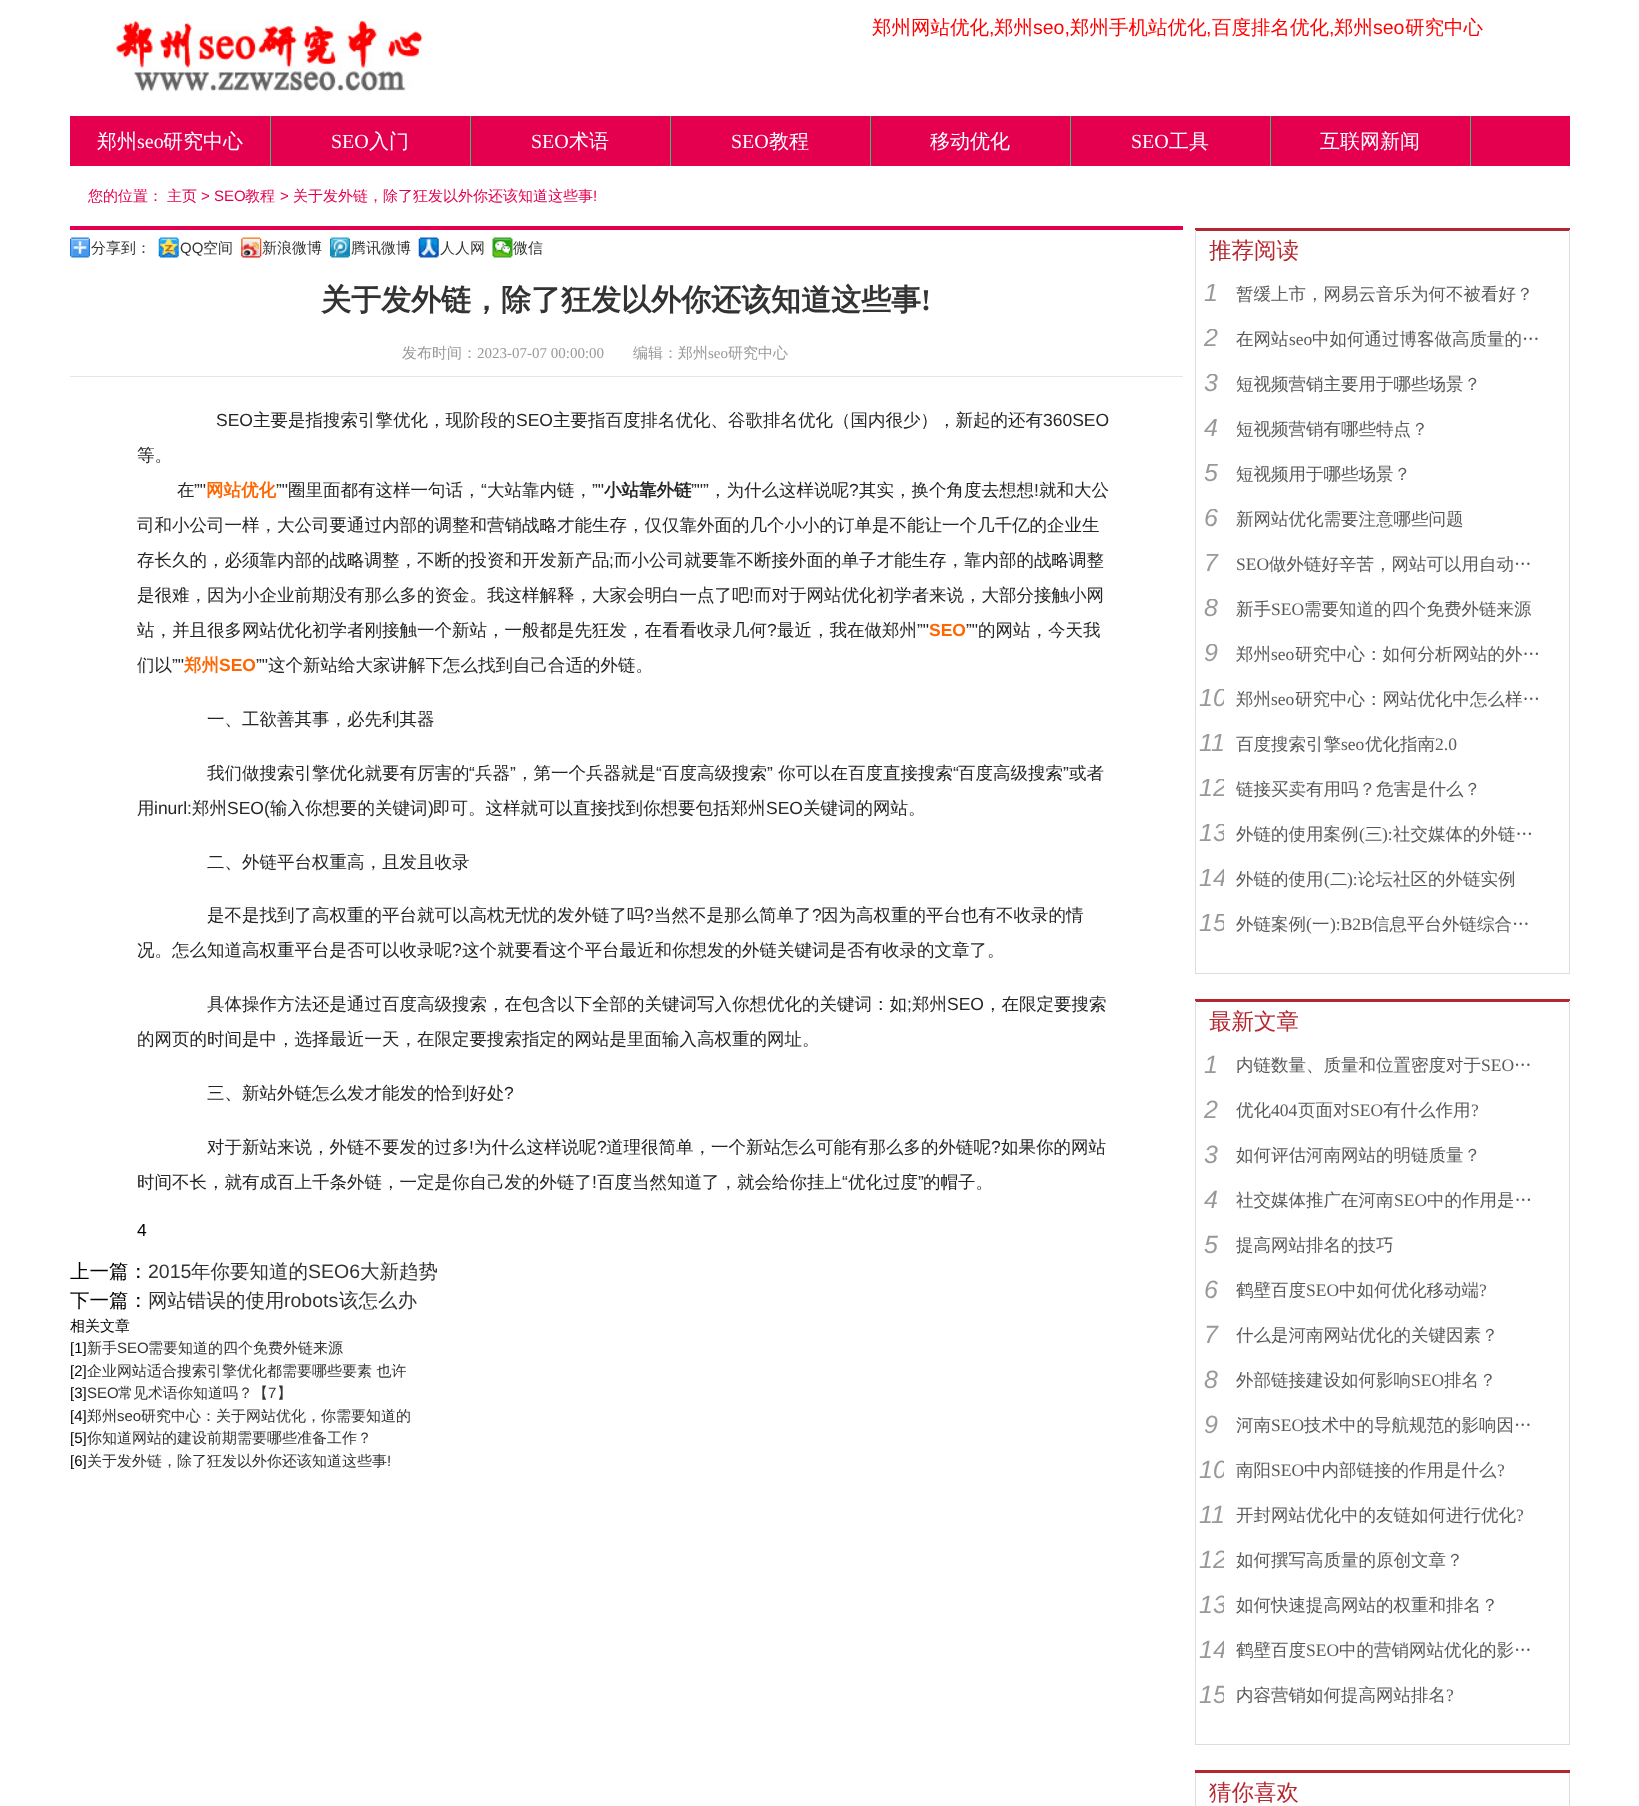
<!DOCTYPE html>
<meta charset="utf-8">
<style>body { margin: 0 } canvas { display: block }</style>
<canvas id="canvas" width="1639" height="1806"></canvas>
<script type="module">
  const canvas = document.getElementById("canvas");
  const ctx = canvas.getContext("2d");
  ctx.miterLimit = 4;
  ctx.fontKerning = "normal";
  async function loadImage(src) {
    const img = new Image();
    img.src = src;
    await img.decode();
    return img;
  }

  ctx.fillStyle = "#ffffff";
  ctx.fillRect(0, 0, 1639, 1806);
  ctx.drawImage(await loadImage("img1.png"), 113, 20, 310, 72);
  ctx.font = "500 19.5px WenQuanYi Zen Hei";
  ctx.fillStyle = "#ff0000";
  ctx.fillText("郑州网站优化", 872, 34);
  ctx.font = "19.5px Liberation Sans";
  ctx.fillText(",", 989, 34);
  ctx.font = "500 19.5px WenQuanYi Zen Hei";
  ctx.fillText("郑州", 994, 34);
  ctx.font = "19.5px Liberation Sans";
  ctx.fillText("seo,", 1033, 34);
  ctx.font = "500 19.5px WenQuanYi Zen Hei";
  ctx.fillText("郑州手机站优化", 1070, 34);
  ctx.font = "19.5px Liberation Sans";
  ctx.fillText(",", 1206, 34);
  ctx.font = "500 19.5px WenQuanYi Zen Hei";
  ctx.fillText("百度排名优化", 1212, 34);
  ctx.font = "19.5px Liberation Sans";
  ctx.fillText(",", 1329, 34);
  ctx.font = "500 19.5px WenQuanYi Zen Hei";
  ctx.fillText("郑州", 1334, 34);
  ctx.font = "19.5px Liberation Sans";
  ctx.fillText("seo", 1373, 34);
  ctx.font = "500 19.5px WenQuanYi Zen Hei";
  ctx.fillText("研究中心", 1405, 34);
  ctx.fillStyle = "#e5004f";
  ctx.fillRect(70, 116, 1500, 50);
  ctx.fillStyle = "#2dc379";
  ctx.fillRect(270, 116, 1, 50);
  ctx.font = "500 20px WenQuanYi Zen Hei";
  ctx.fillStyle = "#ffffff";
  ctx.fillText("郑州", 97, 148);
  ctx.font = "20px Liberation Serif";
  ctx.fillText("seo", 137, 148);
  ctx.font = "500 20px WenQuanYi Zen Hei";
  ctx.fillText("研究中心", 163, 148);
  ctx.fillStyle = "#2dc379";
  ctx.fillRect(470, 116, 1, 50);
  ctx.font = "20px Liberation Serif";
  ctx.fillStyle = "#ffffff";
  ctx.fillText("SEO", 331, 148);
  ctx.font = "500 20px WenQuanYi Zen Hei";
  ctx.fillText("入门", 369, 148);
  ctx.fillStyle = "#2dc379";
  ctx.fillRect(670, 116, 1, 50);
  ctx.font = "20px Liberation Serif";
  ctx.fillStyle = "#ffffff";
  ctx.fillText("SEO", 531, 148);
  ctx.font = "500 20px WenQuanYi Zen Hei";
  ctx.fillText("术语", 569, 148);
  ctx.fillStyle = "#2dc379";
  ctx.fillRect(870, 116, 1, 50);
  ctx.font = "20px Liberation Serif";
  ctx.fillStyle = "#ffffff";
  ctx.fillText("SEO", 731, 148);
  ctx.font = "500 20px WenQuanYi Zen Hei";
  ctx.fillText("教程", 769, 148);
  ctx.fillStyle = "#2dc379";
  ctx.fillRect(1070, 116, 1, 50);
  ctx.fillStyle = "#ffffff";
  ctx.fillText("移动优化", 930, 148);
  ctx.fillStyle = "#2dc379";
  ctx.fillRect(1270, 116, 1, 50);
  ctx.font = "20px Liberation Serif";
  ctx.fillStyle = "#ffffff";
  ctx.fillText("SEO", 1131, 148);
  ctx.font = "500 20px WenQuanYi Zen Hei";
  ctx.fillText("工具", 1169, 148);
  ctx.fillStyle = "#2dc379";
  ctx.fillRect(1470, 116, 1, 50);
  ctx.fillStyle = "#ffffff";
  ctx.fillText("互联网新闻", 1320, 148);
  ctx.font = "500 15px WenQuanYi Zen Hei";
  ctx.fillStyle = "#e5004f";
  ctx.fillText("您的位置：", 88, 201);
  ctx.fillText("主页", 167, 201);
  ctx.font = "15px Liberation Sans";
  ctx.fillText("> SEO", 201, 201);
  ctx.font = "500 15px WenQuanYi Zen Hei";
  ctx.fillText("教程", 245, 201);
  ctx.font = "15px Liberation Sans";
  ctx.fillText(">", 280, 201);
  ctx.font = "500 15px WenQuanYi Zen Hei";
  ctx.fillText("关于发外链，除了狂发以外你还该知道这些事", 293, 201);
  ctx.font = "15px Liberation Sans";
  ctx.fillText("!", 593, 201);
  ctx.fillRect(70, 226, 1113, 4);
  ctx.drawImage(await loadImage("img2.png"), 70, 237, 20, 21);
  ctx.font = "500 15px WenQuanYi Zen Hei";
  ctx.fillStyle = "#333333";
  ctx.fillText("分享到：", 91, 253);
  ctx.drawImage(await loadImage("img3.png"), 158, 237, 21, 21);
  ctx.font = "15px Liberation Sans";
  ctx.fillText("QQ", 180, 253);
  ctx.font = "500 15px WenQuanYi Zen Hei";
  ctx.fillText("空间", 203, 253);
  ctx.drawImage(await loadImage("img4.png"), 241, 237, 21, 21);
  ctx.fillText("新浪微博", 262, 253);
  ctx.drawImage(await loadImage("img5.png"), 330, 237, 20, 21);
  ctx.fillText("腾讯微博", 351, 253);
  ctx.drawImage(await loadImage("img6.png"), 418, 237, 21, 21);
  ctx.fillText("人人网", 440, 253);
  ctx.drawImage(await loadImage("img7.png"), 492, 237, 21, 21);
  ctx.fillText("微信", 513, 253);
  ctx.fillStyle = "#e5e5e5";
  ctx.fillRect(70, 376, 1113, 1);
  ctx.font = "bold 30px WenQuanYi Zen Hei";
  ctx.fillStyle = "#333333";
  ctx.fillText("关于发外链，除了狂发以外你还该知道这些事", 321, 310);
  ctx.font = "bold 30px Liberation Serif";
  ctx.fillText("!", 921, 310);
  ctx.font = "500 15px WenQuanYi Zen Hei";
  ctx.fillStyle = "#999999";
  ctx.fillText("发布时间：", 402, 358);
  ctx.font = "15px Liberation Serif";
  ctx.fillText("2023-07-07 00:00:00", 477, 358);
  ctx.font = "500 15px WenQuanYi Zen Hei";
  ctx.fillText("编辑：郑州", 633, 358);
  ctx.font = "15px Liberation Serif";
  ctx.fillText("seo", 708, 358);
  ctx.font = "500 15px WenQuanYi Zen Hei";
  ctx.fillText("研究中心", 728, 358);
  ctx.font = "17.5px Liberation Sans";
  ctx.fillStyle = "#252525";
  ctx.fillText("SEO", 216, 426);
  ctx.font = "500 17.5px WenQuanYi Zen Hei";
  ctx.fillText("主要是指搜索引擎优化，现阶段的", 253, 426);
  ctx.font = "17.5px Liberation Sans";
  ctx.fillText("SEO", 516, 426);
  ctx.font = "500 17.5px WenQuanYi Zen Hei";
  ctx.fillText("主要指百度排名优化、谷歌排名优化（国内很少），新起的还有", 553, 426);
  ctx.font = "17.5px Liberation Sans";
  ctx.fillText("360SEO", 1043, 426);
  ctx.font = "500 17.5px WenQuanYi Zen Hei";
  ctx.fillText("等。", 137, 461);
  ctx.fillText("在", 177, 496);
  ctx.font = "17.5px Liberation Sans";
  ctx.fillText("”\"", 194, 496);
  ctx.font = "bold 17.5px WenQuanYi Zen Hei";
  ctx.fillStyle = "#ff6600";
  ctx.fillText("网站优化", 206, 496);
  ctx.font = "17.5px Liberation Sans";
  ctx.fillStyle = "#252525";
  ctx.fillText("”\"", 276, 496);
  ctx.font = "500 17.5px WenQuanYi Zen Hei";
  ctx.fillText("圈里面都有这样一句话，", 288, 496);
  ctx.font = "17.5px Liberation Sans";
  ctx.fillText("“", 481, 496);
  ctx.font = "500 17.5px WenQuanYi Zen Hei";
  ctx.fillText("大站靠内链，", 487, 496);
  ctx.font = "17.5px Liberation Sans";
  ctx.fillText("”\"", 592, 496);
  ctx.font = "bold 17.5px WenQuanYi Zen Hei";
  ctx.fillText("小站靠外链", 604, 496);
  ctx.font = "17.5px Liberation Sans";
  ctx.fillText("”\"”", 691, 496);
  ctx.font = "500 17.5px WenQuanYi Zen Hei";
  ctx.fillText("，为什么这样说呢", 709, 496);
  ctx.font = "17.5px Liberation Sans";
  ctx.fillText("?", 849, 496);
  ctx.font = "500 17.5px WenQuanYi Zen Hei";
  ctx.fillText("其实，换个角度去想想", 859, 496);
  ctx.font = "17.5px Liberation Sans";
  ctx.fillText("!", 1034, 496);
  ctx.font = "500 17.5px WenQuanYi Zen Hei";
  ctx.fillText("就和大公", 1039, 496);
  ctx.fillText("司和小公司一样，大公司要通过内部的调整和营销战略才能生存，仅仅靠外面的几个小小的订单是不能让一个几千亿的企业生", 137, 531);
  ctx.fillText("存长久的，必须靠内部的战略调整，不断的投资和开发新产品", 137, 566);
  ctx.font = "17.5px Liberation Sans";
  ctx.fillText(";", 609, 566);
  ctx.font = "500 17.5px WenQuanYi Zen Hei";
  ctx.fillText("而小公司就要靠不断接外面的单子才能生存，靠内部的战略调整", 614, 566);
  ctx.fillText("是很难，因为小企业前期没有那么多的资金。我这样解释，大家会明白一点了吧", 137, 601);
  ctx.font = "17.5px Liberation Sans";
  ctx.fillText("!", 749, 601);
  ctx.font = "500 17.5px WenQuanYi Zen Hei";
  ctx.fillText("而对于网站优化初学者来说，大部分接触小网", 754, 601);
  ctx.fillText("站，并且很多网站优化初学者刚接触一个新站，一般都是先狂发，在看看收录几何", 137, 636);
  ctx.font = "17.5px Liberation Sans";
  ctx.fillText("?", 767, 636);
  ctx.font = "500 17.5px WenQuanYi Zen Hei";
  ctx.fillText("最近，我在做郑州", 777, 636);
  ctx.font = "17.5px Liberation Sans";
  ctx.fillText("”\"", 917, 636);
  ctx.font = "bold 17.5px Liberation Sans";
  ctx.fillStyle = "#ff6600";
  ctx.fillText("SEO", 929, 636);
  ctx.font = "17.5px Liberation Sans";
  ctx.fillStyle = "#252525";
  ctx.fillText("”\"", 966, 636);
  ctx.font = "500 17.5px WenQuanYi Zen Hei";
  ctx.fillText("的网站，今天我", 978, 636);
  ctx.fillText("们以", 137, 671);
  ctx.font = "17.5px Liberation Sans";
  ctx.fillText("”\"", 172, 671);
  ctx.font = "bold 17.5px WenQuanYi Zen Hei";
  ctx.fillStyle = "#ff6600";
  ctx.fillText("郑州", 184, 671);
  ctx.font = "bold 17.5px Liberation Sans";
  ctx.fillText("SEO", 219, 671);
  ctx.font = "17.5px Liberation Sans";
  ctx.fillStyle = "#252525";
  ctx.fillText("”\"", 256, 671);
  ctx.font = "500 17.5px WenQuanYi Zen Hei";
  ctx.fillText("这个新站给大家讲解下怎么找到自己合适的外链。", 268, 671);
  ctx.fillText("一、工欲善其事，必先利其器", 207, 725);
  ctx.fillText("我们做搜索引擎优化就要有厉害的", 207, 779);
  ctx.font = "17.5px Liberation Sans";
  ctx.fillText("“", 469, 779);
  ctx.font = "500 17.5px WenQuanYi Zen Hei";
  ctx.fillText("兵器", 475, 779);
  ctx.font = "17.5px Liberation Sans";
  ctx.fillText("”", 510, 779);
  ctx.font = "500 17.5px WenQuanYi Zen Hei";
  ctx.fillText("，第一个兵器就是", 516, 779);
  ctx.font = "17.5px Liberation Sans";
  ctx.fillText("“", 656, 779);
  ctx.font = "500 17.5px WenQuanYi Zen Hei";
  ctx.fillText("百度高级搜索", 662, 779);
  ctx.font = "17.5px Liberation Sans";
  ctx.fillText("”", 767, 779);
  ctx.font = "500 17.5px WenQuanYi Zen Hei";
  ctx.fillText("你可以在百度直接搜索", 778, 779);
  ctx.font = "17.5px Liberation Sans";
  ctx.fillText("“", 953, 779);
  ctx.font = "500 17.5px WenQuanYi Zen Hei";
  ctx.fillText("百度高级搜索", 958, 779);
  ctx.font = "17.5px Liberation Sans";
  ctx.fillText("”", 1063, 779);
  ctx.font = "500 17.5px WenQuanYi Zen Hei";
  ctx.fillText("或者", 1069, 779);
  ctx.fillText("用", 137, 814);
  ctx.font = "17.5px Liberation Sans";
  ctx.fillText("inurl:", 154, 814);
  ctx.font = "500 17.5px WenQuanYi Zen Hei";
  ctx.fillText("郑州", 192, 814);
  ctx.font = "17.5px Liberation Sans";
  ctx.fillText("SEO(", 227, 814);
  ctx.font = "500 17.5px WenQuanYi Zen Hei";
  ctx.fillText("输入你想要的关键词", 270, 814);
  ctx.font = "17.5px Liberation Sans";
  ctx.fillText(")", 428, 814);
  ctx.font = "500 17.5px WenQuanYi Zen Hei";
  ctx.fillText("即可。这样就可以直接找到你想要包括郑州", 433, 814);
  ctx.font = "17.5px Liberation Sans";
  ctx.fillText("SEO", 766, 814);
  ctx.font = "500 17.5px WenQuanYi Zen Hei";
  ctx.fillText("关键词的网站。", 803, 814);
  ctx.fillText("二、外链平台权重高，且发且收录", 207, 868);
  ctx.fillText("是不是找到了高权重的平台就可以高枕无忧的发外链了吗", 207, 921);
  ctx.font = "17.5px Liberation Sans";
  ctx.fillText("?", 644, 921);
  ctx.font = "500 17.5px WenQuanYi Zen Hei";
  ctx.fillText("当然不是那么简单了", 654, 921);
  ctx.font = "17.5px Liberation Sans";
  ctx.fillText("?", 812, 921);
  ctx.font = "500 17.5px WenQuanYi Zen Hei";
  ctx.fillText("因为高权重的平台也有不收录的情", 821, 921);
  ctx.fillText("况。怎么知道高权重平台是否可以收录呢", 137, 956);
  ctx.font = "17.5px Liberation Sans";
  ctx.fillText("?", 452, 956);
  ctx.font = "500 17.5px WenQuanYi Zen Hei";
  ctx.fillText("这个就要看这个平台最近和你想发的外链关键词是否有收录的文章了。", 462, 956);
  ctx.fillText("具体操作方法还是通过百度高级搜索，在包含以下全部的关键词写入你想优化的关键词：如", 207, 1010);
  ctx.font = "17.5px Liberation Sans";
  ctx.fillText(";", 907, 1010);
  ctx.font = "500 17.5px WenQuanYi Zen Hei";
  ctx.fillText("郑州", 912, 1010);
  ctx.font = "17.5px Liberation Sans";
  ctx.fillText("SEO", 947, 1010);
  ctx.font = "500 17.5px WenQuanYi Zen Hei";
  ctx.fillText("，在限定要搜索", 984, 1010);
  ctx.fillText("的网页的时间是中，选择最近一天，在限定要搜索指定的网站是里面输入高权重的网址。", 137, 1045);
  ctx.fillText("三、新站外链怎么发才能发的恰到好处", 207, 1099);
  ctx.font = "17.5px Liberation Sans";
  ctx.fillText("?", 504, 1099);
  ctx.font = "500 17.5px WenQuanYi Zen Hei";
  ctx.fillText("对于新站来说，外链不要发的过多", 207, 1153);
  ctx.font = "17.5px Liberation Sans";
  ctx.fillText("!", 469, 1153);
  ctx.font = "500 17.5px WenQuanYi Zen Hei";
  ctx.fillText("为什么这样说呢", 474, 1153);
  ctx.font = "17.5px Liberation Sans";
  ctx.fillText("?", 597, 1153);
  ctx.font = "500 17.5px WenQuanYi Zen Hei";
  ctx.fillText("道理很简单，一个新站怎么可能有那么多的外链呢", 606, 1153);
  ctx.font = "17.5px Liberation Sans";
  ctx.fillText("?", 991, 1153);
  ctx.font = "500 17.5px WenQuanYi Zen Hei";
  ctx.fillText("如果你的网站", 1001, 1153);
  ctx.fillText("时间不长，就有成百上千条外链，一定是你自己发的外链了", 137, 1188);
  ctx.font = "17.5px Liberation Sans";
  ctx.fillText("!", 592, 1188);
  ctx.font = "500 17.5px WenQuanYi Zen Hei";
  ctx.fillText("百度当然知道了，就会给你挂上", 597, 1188);
  ctx.font = "17.5px Liberation Sans";
  ctx.fillText("“", 842, 1188);
  ctx.font = "500 17.5px WenQuanYi Zen Hei";
  ctx.fillText("优化过度", 848, 1188);
  ctx.font = "17.5px Liberation Sans";
  ctx.fillText("”", 918, 1188);
  ctx.font = "500 17.5px WenQuanYi Zen Hei";
  ctx.fillText("的帽子。", 923, 1188);
  ctx.font = "17.5px Liberation Sans";
  ctx.fillStyle = "#000000";
  ctx.fillText("4", 137, 1236);
  ctx.font = "500 19.5px WenQuanYi Zen Hei";
  ctx.fillText("上一篇：", 70, 1278);
  ctx.font = "19.5px Liberation Sans";
  ctx.fillStyle = "#333333";
  ctx.fillText("2015", 148, 1278);
  ctx.font = "500 19.5px WenQuanYi Zen Hei";
  ctx.fillText("年你要知道的", 191, 1278);
  ctx.font = "19.5px Liberation Sans";
  ctx.fillText("SEO6", 308, 1278);
  ctx.font = "500 19.5px WenQuanYi Zen Hei";
  ctx.fillText("大新趋势", 360, 1278);
  ctx.fillStyle = "#000000";
  ctx.fillText("下一篇：", 70, 1307);
  ctx.fillStyle = "#333333";
  ctx.fillText("网站错误的使用", 148, 1307);
  ctx.font = "19.5px Liberation Sans";
  ctx.fillText("robots", 284, 1307);
  ctx.font = "500 19.5px WenQuanYi Zen Hei";
  ctx.fillText("该怎么办", 339, 1307);
  ctx.font = "500 15px WenQuanYi Zen Hei";
  ctx.fillStyle = "#000000";
  ctx.fillText("相关文章", 70, 1331);
  ctx.font = "15px Liberation Sans";
  ctx.fillText("[1]", 70, 1353);
  ctx.font = "500 15px WenQuanYi Zen Hei";
  ctx.fillStyle = "#333333";
  ctx.fillText("新手", 87, 1353);
  ctx.font = "15px Liberation Sans";
  ctx.fillText("SEO", 117, 1353);
  ctx.font = "500 15px WenQuanYi Zen Hei";
  ctx.fillText("需要知道的四个免费外链来源", 148, 1353);
  ctx.font = "15px Liberation Sans";
  ctx.fillStyle = "#000000";
  ctx.fillText("[2]", 70, 1376);
  ctx.font = "500 15px WenQuanYi Zen Hei";
  ctx.fillStyle = "#333333";
  ctx.fillText("企业网站适合搜索引擎优化都需要哪些要素 也许", 87, 1376);
  ctx.font = "15px Liberation Sans";
  ctx.fillStyle = "#000000";
  ctx.fillText("[3]", 70, 1398);
  ctx.fillStyle = "#333333";
  ctx.fillText("SEO", 87, 1398);
  ctx.font = "500 15px WenQuanYi Zen Hei";
  ctx.fillText("常见术语你知道吗？【", 118, 1398);
  ctx.font = "15px Liberation Sans";
  ctx.fillText("7", 268, 1398);
  ctx.font = "500 15px WenQuanYi Zen Hei";
  ctx.fillText("】", 277, 1398);
  ctx.font = "15px Liberation Sans";
  ctx.fillStyle = "#000000";
  ctx.fillText("[4]", 70, 1421);
  ctx.font = "500 15px WenQuanYi Zen Hei";
  ctx.fillStyle = "#333333";
  ctx.fillText("郑州", 87, 1421);
  ctx.font = "15px Liberation Sans";
  ctx.fillText("seo", 117, 1421);
  ctx.font = "500 15px WenQuanYi Zen Hei";
  ctx.fillText("研究中心：关于网站优化，你需要知道的", 141, 1421);
  ctx.font = "15px Liberation Sans";
  ctx.fillStyle = "#000000";
  ctx.fillText("[5]", 70, 1443);
  ctx.font = "500 15px WenQuanYi Zen Hei";
  ctx.fillStyle = "#333333";
  ctx.fillText("你知道网站的建设前期需要哪些准备工作？", 87, 1443);
  ctx.font = "15px Liberation Sans";
  ctx.fillStyle = "#000000";
  ctx.fillText("[6]", 70, 1466);
  ctx.font = "500 15px WenQuanYi Zen Hei";
  ctx.fillStyle = "#333333";
  ctx.fillText("关于发外链，除了狂发以外你还该知道这些事", 87, 1466);
  ctx.font = "15px Liberation Sans";
  ctx.fillText("!", 387, 1466);
  ctx.fillStyle = "#b6262f";
  ctx.fillRect(1195, 228, 375, 3);
  ctx.fillStyle = "#dddddd";
  ctx.fillRect(1569, 230, 1, 744);
  ctx.fillRect(1195, 973, 375, 1);
  ctx.fillRect(1195, 230, 1, 744);
  ctx.font = "500 22.5px WenQuanYi Zen Hei";
  ctx.fillStyle = "#b6262f";
  ctx.fillText("推荐阅读", 1209, 258);
  ctx.save();
  ctx.beginPath();
  ctx.rect(1199, 284, 25, 25);
  ctx.clip();
  ctx.font = "italic 25px Liberation Sans";
  ctx.fillStyle = "#999999";
  ctx.fillText("1", 1204, 301);
  ctx.restore();
  ctx.font = "500 17.5px WenQuanYi Zen Hei";
  ctx.fillStyle = "#595959";
  ctx.fillText("暂缓上市，网易云音乐为何不被看好？", 1236, 300);
  ctx.save();
  ctx.beginPath();
  ctx.rect(1199, 329, 25, 25);
  ctx.clip();
  ctx.font = "italic 25px Liberation Sans";
  ctx.fillStyle = "#999999";
  ctx.fillText("2", 1204, 346);
  ctx.restore();
  ctx.fillText("在网站", 1236, 345);
  ctx.font = "17.5px Liberation Serif";
  ctx.fillText("seo", 1289, 345);
  ctx.font = "500 17.5px WenQuanYi Zen Hei";
  ctx.fillText("中如何通过博客做高质量的…", 1312, 345);
  ctx.save();
  ctx.beginPath();
  ctx.rect(1199, 374, 25, 25);
  ctx.clip();
  ctx.font = "italic 25px Liberation Sans";
  ctx.fillStyle = "#999999";
  ctx.fillText("3", 1204, 391);
  ctx.restore();
  ctx.fillText("短视频营销主要用于哪些场景？", 1236, 390);
  ctx.save();
  ctx.beginPath();
  ctx.rect(1199, 419, 25, 25);
  ctx.clip();
  ctx.font = "italic 25px Liberation Sans";
  ctx.fillStyle = "#999999";
  ctx.fillText("4", 1204, 436);
  ctx.restore();
  ctx.fillText("短视频营销有哪些特点？", 1236, 435);
  ctx.save();
  ctx.beginPath();
  ctx.rect(1199, 464, 25, 25);
  ctx.clip();
  ctx.font = "italic 25px Liberation Sans";
  ctx.fillStyle = "#999999";
  ctx.fillText("5", 1204, 481);
  ctx.restore();
  ctx.fillText("短视频用于哪些场景？", 1236, 480);
  ctx.save();
  ctx.beginPath();
  ctx.rect(1199, 509, 25, 25);
  ctx.clip();
  ctx.font = "italic 25px Liberation Sans";
  ctx.fillStyle = "#999999";
  ctx.fillText("6", 1204, 526);
  ctx.restore();
  ctx.fillText("新网站优化需要注意哪些问题", 1236, 525);
  ctx.save();
  ctx.beginPath();
  ctx.rect(1199, 554, 25, 25);
  ctx.clip();
  ctx.font = "italic 25px Liberation Sans";
  ctx.fillStyle = "#999999";
  ctx.fillText("7", 1204, 571);
  ctx.restore();
  ctx.font = "17.5px Liberation Serif";
  ctx.fillText("SEO", 1236, 570);
  ctx.font = "500 17.5px WenQuanYi Zen Hei";
  ctx.fillText("做外链好辛苦，网站可以用自动…", 1269, 570);
  ctx.save();
  ctx.beginPath();
  ctx.rect(1199, 599, 25, 25);
  ctx.clip();
  ctx.font = "italic 25px Liberation Sans";
  ctx.fillStyle = "#999999";
  ctx.fillText("8", 1204, 616);
  ctx.restore();
  ctx.fillText("新手", 1236, 615);
  ctx.font = "17.5px Liberation Serif";
  ctx.fillText("SEO", 1271, 615);
  ctx.font = "500 17.5px WenQuanYi Zen Hei";
  ctx.fillText("需要知道的四个免费外链来源", 1304, 615);
  ctx.save();
  ctx.beginPath();
  ctx.rect(1199, 644, 25, 25);
  ctx.clip();
  ctx.font = "italic 25px Liberation Sans";
  ctx.fillStyle = "#999999";
  ctx.fillText("9", 1204, 661);
  ctx.restore();
  ctx.fillText("郑州", 1236, 660);
  ctx.font = "17.5px Liberation Serif";
  ctx.fillText("seo", 1271, 660);
  ctx.font = "500 17.5px WenQuanYi Zen Hei";
  ctx.fillText("研究中心：如何分析网站的外…", 1295, 660);
  ctx.save();
  ctx.beginPath();
  ctx.rect(1199, 689, 25, 25);
  ctx.clip();
  ctx.font = "italic 25px Liberation Sans";
  ctx.fillStyle = "#999999";
  ctx.fillText("10", 1199, 706);
  ctx.restore();
  ctx.fillText("郑州", 1236, 705);
  ctx.font = "17.5px Liberation Serif";
  ctx.fillText("seo", 1271, 705);
  ctx.font = "500 17.5px WenQuanYi Zen Hei";
  ctx.fillText("研究中心：网站优化中怎么样…", 1295, 705);
  ctx.save();
  ctx.beginPath();
  ctx.rect(1199, 734, 25, 25);
  ctx.clip();
  ctx.font = "italic 25px Liberation Sans";
  ctx.fillStyle = "#999999";
  ctx.fillText("11", 1199, 751);
  ctx.restore();
  ctx.fillText("百度搜索引擎", 1236, 750);
  ctx.font = "17.5px Liberation Serif";
  ctx.fillText("seo", 1341, 750);
  ctx.font = "500 17.5px WenQuanYi Zen Hei";
  ctx.fillText("优化指南", 1365, 750);
  ctx.font = "17.5px Liberation Serif";
  ctx.fillText("2.0", 1435, 750);
  ctx.save();
  ctx.beginPath();
  ctx.rect(1199, 779, 25, 25);
  ctx.clip();
  ctx.font = "italic 25px Liberation Sans";
  ctx.fillStyle = "#999999";
  ctx.fillText("12", 1199, 796);
  ctx.restore();
  ctx.font = "500 17.5px WenQuanYi Zen Hei";
  ctx.fillText("链接买卖有用吗？危害是什么？", 1236, 795);
  ctx.save();
  ctx.beginPath();
  ctx.rect(1199, 824, 25, 25);
  ctx.clip();
  ctx.font = "italic 25px Liberation Sans";
  ctx.fillStyle = "#999999";
  ctx.fillText("13", 1199, 841);
  ctx.restore();
  ctx.fillText("外链的使用案例", 1236, 840);
  ctx.font = "17.5px Liberation Serif";
  ctx.fillText("(", 1359, 840);
  ctx.font = "500 17.5px WenQuanYi Zen Hei";
  ctx.fillText("三", 1365, 840);
  ctx.font = "17.5px Liberation Serif";
  ctx.fillText("):", 1382, 840);
  ctx.font = "500 17.5px WenQuanYi Zen Hei";
  ctx.fillText("社交媒体的外链…", 1393, 840);
  ctx.save();
  ctx.beginPath();
  ctx.rect(1199, 869, 25, 25);
  ctx.clip();
  ctx.font = "italic 25px Liberation Sans";
  ctx.fillStyle = "#999999";
  ctx.fillText("14", 1199, 886);
  ctx.restore();
  ctx.fillText("外链的使用", 1236, 885);
  ctx.font = "17.5px Liberation Serif";
  ctx.fillText("(", 1324, 885);
  ctx.font = "500 17.5px WenQuanYi Zen Hei";
  ctx.fillText("二", 1330, 885);
  ctx.font = "17.5px Liberation Serif";
  ctx.fillText("):", 1347, 885);
  ctx.font = "500 17.5px WenQuanYi Zen Hei";
  ctx.fillText("论坛社区的外链实例", 1358, 885);
  ctx.save();
  ctx.beginPath();
  ctx.rect(1199, 914, 25, 25);
  ctx.clip();
  ctx.font = "italic 25px Liberation Sans";
  ctx.fillStyle = "#999999";
  ctx.fillText("15", 1199, 931);
  ctx.restore();
  ctx.fillText("外链案例", 1236, 930);
  ctx.font = "17.5px Liberation Serif";
  ctx.fillText("(", 1306, 930);
  ctx.font = "500 17.5px WenQuanYi Zen Hei";
  ctx.fillText("一", 1312, 930);
  ctx.font = "17.5px Liberation Serif";
  ctx.fillText("):B2B", 1330, 930);
  ctx.font = "500 17.5px WenQuanYi Zen Hei";
  ctx.fillText("信息平台外链综合…", 1372, 930);
  ctx.fillStyle = "#b6262f";
  ctx.fillRect(1195, 999, 375, 3);
  ctx.fillStyle = "#dddddd";
  ctx.fillRect(1569, 1001, 1, 744);
  ctx.fillRect(1195, 1744, 375, 1);
  ctx.fillRect(1195, 1001, 1, 744);
  ctx.font = "500 22.5px WenQuanYi Zen Hei";
  ctx.fillStyle = "#b6262f";
  ctx.fillText("最新文章", 1209, 1029);
  ctx.font = "italic 25px Liberation Sans";
  ctx.fillStyle = "#999999";
  ctx.fillText("1", 1204, 1073);
  ctx.font = "500 17.5px WenQuanYi Zen Hei";
  ctx.fillStyle = "#595959";
  ctx.fillText("内链数量、质量和位置密度对于", 1236, 1071);
  ctx.font = "17.5px Liberation Serif";
  ctx.fillText("SEO", 1481, 1071);
  ctx.font = "500 17.5px WenQuanYi Zen Hei";
  ctx.fillText("…", 1514, 1071);
  ctx.font = "italic 25px Liberation Sans";
  ctx.fillStyle = "#999999";
  ctx.fillText("2", 1204, 1118);
  ctx.font = "500 17.5px WenQuanYi Zen Hei";
  ctx.fillStyle = "#595959";
  ctx.fillText("优化", 1236, 1116);
  ctx.font = "17.5px Liberation Serif";
  ctx.fillText("404", 1271, 1116);
  ctx.font = "500 17.5px WenQuanYi Zen Hei";
  ctx.fillText("页面对", 1298, 1116);
  ctx.font = "17.5px Liberation Serif";
  ctx.fillText("SEO", 1350, 1116);
  ctx.font = "500 17.5px WenQuanYi Zen Hei";
  ctx.fillText("有什么作用", 1383, 1116);
  ctx.font = "17.5px Liberation Serif";
  ctx.fillText("?", 1471, 1116);
  ctx.font = "italic 25px Liberation Sans";
  ctx.fillStyle = "#999999";
  ctx.fillText("3", 1204, 1163);
  ctx.font = "500 17.5px WenQuanYi Zen Hei";
  ctx.fillStyle = "#595959";
  ctx.fillText("如何评估河南网站的明链质量？", 1236, 1161);
  ctx.font = "italic 25px Liberation Sans";
  ctx.fillStyle = "#999999";
  ctx.fillText("4", 1204, 1208);
  ctx.font = "500 17.5px WenQuanYi Zen Hei";
  ctx.fillStyle = "#595959";
  ctx.fillText("社交媒体推广在河南", 1236, 1206);
  ctx.font = "17.5px Liberation Serif";
  ctx.fillText("SEO", 1394, 1206);
  ctx.font = "500 17.5px WenQuanYi Zen Hei";
  ctx.fillText("中的作用是…", 1427, 1206);
  ctx.font = "italic 25px Liberation Sans";
  ctx.fillStyle = "#999999";
  ctx.fillText("5", 1204, 1253);
  ctx.font = "500 17.5px WenQuanYi Zen Hei";
  ctx.fillStyle = "#595959";
  ctx.fillText("提高网站排名的技巧", 1236, 1251);
  ctx.font = "italic 25px Liberation Sans";
  ctx.fillStyle = "#999999";
  ctx.fillText("6", 1204, 1298);
  ctx.font = "500 17.5px WenQuanYi Zen Hei";
  ctx.fillStyle = "#595959";
  ctx.fillText("鹤壁百度", 1236, 1296);
  ctx.font = "17.5px Liberation Serif";
  ctx.fillText("SEO", 1306, 1296);
  ctx.font = "500 17.5px WenQuanYi Zen Hei";
  ctx.fillText("中如何优化移动端", 1339, 1296);
  ctx.font = "17.5px Liberation Serif";
  ctx.fillText("?", 1479, 1296);
  ctx.font = "italic 25px Liberation Sans";
  ctx.fillStyle = "#999999";
  ctx.fillText("7", 1204, 1343);
  ctx.font = "500 17.5px WenQuanYi Zen Hei";
  ctx.fillStyle = "#595959";
  ctx.fillText("什么是河南网站优化的关键因素？", 1236, 1341);
  ctx.font = "italic 25px Liberation Sans";
  ctx.fillStyle = "#999999";
  ctx.fillText("8", 1204, 1388);
  ctx.font = "500 17.5px WenQuanYi Zen Hei";
  ctx.fillStyle = "#595959";
  ctx.fillText("外部链接建设如何影响", 1236, 1386);
  ctx.font = "17.5px Liberation Serif";
  ctx.fillText("SEO", 1411, 1386);
  ctx.font = "500 17.5px WenQuanYi Zen Hei";
  ctx.fillText("排名？", 1444, 1386);
  ctx.font = "italic 25px Liberation Sans";
  ctx.fillStyle = "#999999";
  ctx.fillText("9", 1204, 1433);
  ctx.font = "500 17.5px WenQuanYi Zen Hei";
  ctx.fillStyle = "#595959";
  ctx.fillText("河南", 1236, 1431);
  ctx.font = "17.5px Liberation Serif";
  ctx.fillText("SEO", 1271, 1431);
  ctx.font = "500 17.5px WenQuanYi Zen Hei";
  ctx.fillText("技术中的导航规范的影响因…", 1304, 1431);
  ctx.save();
  ctx.beginPath();
  ctx.rect(1199, 1460, 25, 25);
  ctx.clip();
  ctx.font = "italic 25px Liberation Sans";
  ctx.fillStyle = "#999999";
  ctx.fillText("10", 1199, 1478);
  ctx.restore();
  ctx.fillText("南阳", 1236, 1476);
  ctx.font = "17.5px Liberation Serif";
  ctx.fillText("SEO", 1271, 1476);
  ctx.font = "500 17.5px WenQuanYi Zen Hei";
  ctx.fillText("中内部链接的作用是什么", 1304, 1476);
  ctx.font = "17.5px Liberation Serif";
  ctx.fillText("?", 1497, 1476);
  ctx.font = "italic 25px Liberation Sans";
  ctx.fillStyle = "#999999";
  ctx.fillText("11", 1199, 1523);
  ctx.font = "500 17.5px WenQuanYi Zen Hei";
  ctx.fillStyle = "#595959";
  ctx.fillText("开封网站优化中的友链如何进行优化", 1236, 1521);
  ctx.font = "17.5px Liberation Serif";
  ctx.fillText("?", 1516, 1521);
  ctx.save();
  ctx.beginPath();
  ctx.rect(1199, 1550, 25, 25);
  ctx.clip();
  ctx.font = "italic 25px Liberation Sans";
  ctx.fillStyle = "#999999";
  ctx.fillText("12", 1199, 1568);
  ctx.restore();
  ctx.font = "500 17.5px WenQuanYi Zen Hei";
  ctx.fillText("如何撰写高质量的原创文章？", 1236, 1566);
  ctx.save();
  ctx.beginPath();
  ctx.rect(1199, 1595, 25, 25);
  ctx.clip();
  ctx.font = "italic 25px Liberation Sans";
  ctx.fillStyle = "#999999";
  ctx.fillText("13", 1199, 1613);
  ctx.restore();
  ctx.fillText("如何快速提高网站的权重和排名？", 1236, 1611);
  ctx.save();
  ctx.beginPath();
  ctx.rect(1199, 1640, 25, 25);
  ctx.clip();
  ctx.font = "italic 25px Liberation Sans";
  ctx.fillStyle = "#999999";
  ctx.fillText("14", 1199, 1658);
  ctx.restore();
  ctx.fillText("鹤壁百度", 1236, 1656);
  ctx.font = "17.5px Liberation Serif";
  ctx.fillText("SEO", 1306, 1656);
  ctx.font = "500 17.5px WenQuanYi Zen Hei";
  ctx.fillText("中的营销网站优化的影…", 1339, 1656);
  ctx.save();
  ctx.beginPath();
  ctx.rect(1199, 1685, 25, 25);
  ctx.clip();
  ctx.font = "italic 25px Liberation Sans";
  ctx.fillStyle = "#999999";
  ctx.fillText("15", 1199, 1703);
  ctx.restore();
  ctx.fillText("内容营销如何提高网站排名", 1236, 1701);
  ctx.font = "17.5px Liberation Serif";
  ctx.fillText("?", 1446, 1701);
  ctx.fillStyle = "#b6262f";
  ctx.fillRect(1195, 1770, 375, 3);
  ctx.fillStyle = "#dddddd";
  ctx.fillRect(1569, 1773, 1, 33);
  ctx.fillRect(1195, 1773, 1, 33);
  ctx.font = "500 22.5px WenQuanYi Zen Hei";
  ctx.fillStyle = "#b6262f";
  ctx.fillText("猜你喜欢", 1209, 1800);
</script>
